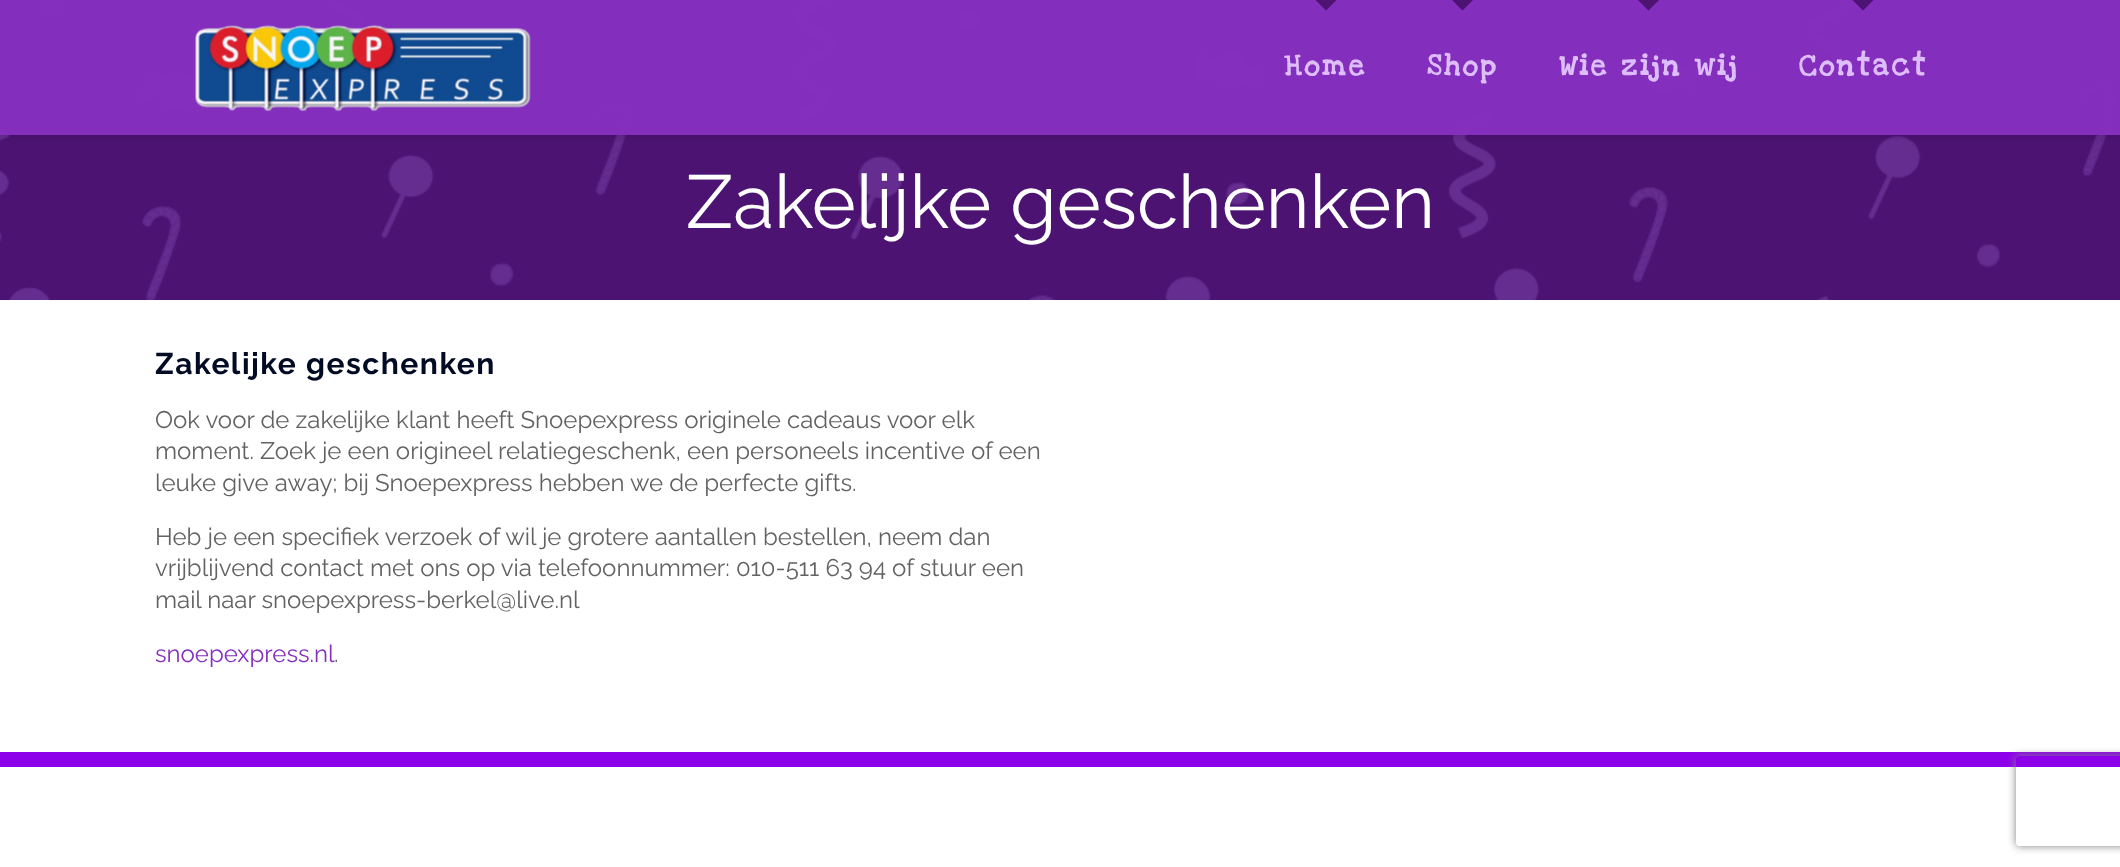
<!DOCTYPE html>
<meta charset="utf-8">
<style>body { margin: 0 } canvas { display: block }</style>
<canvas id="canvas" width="2120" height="867"></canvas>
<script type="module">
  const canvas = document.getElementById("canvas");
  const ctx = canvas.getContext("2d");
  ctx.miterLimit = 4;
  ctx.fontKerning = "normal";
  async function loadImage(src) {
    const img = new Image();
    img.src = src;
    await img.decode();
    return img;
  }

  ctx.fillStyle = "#ffffff";
  ctx.fillRect(0, 0, 2120, 867);
  ctx.drawImage(await loadImage("img1.png"), 0, 0, 2120, 300);
  ctx.save();
  ctx.beginPath();
  ctx.rect(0, 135, 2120, 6);
  ctx.clip();
  ctx.fillStyle = "rgba(0, 0, 0, 0.1)";
  ctx.filter = "blur(4px)";
  ctx.beginPath();
  ctx.rect(0, 3, 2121, 135);
  ctx.fill();
  ctx.filter = "none";
  ctx.restore();
  ctx.fillStyle = "rgba(133, 47, 190, 0.97)";
  ctx.fillRect(0, 0, 2120, 135);
  ctx.drawImage(await loadImage("img2.png"), 195, 25, 336, 87);
  ctx.fillStyle = "#4c1373";
  ctx.beginPath();
  ctx.moveTo(1315.5, 0);
  ctx.lineTo(1336.5, 0);
  ctx.lineTo(1326, 10.5);
  ctx.closePath();
  ctx.fill();
  ctx.letterSpacing = "3px";
  ctx.font = "bold 30px Love Ya Like A Sister";
  ctx.fillStyle = "#debdfb";
  ctx.fillText("Home", 1284, 75);
  ctx.fillStyle = "#4c1373";
  ctx.beginPath();
  ctx.moveTo(1452, 0);
  ctx.lineTo(1473, 0);
  ctx.lineTo(1462.5, 10.5);
  ctx.closePath();
  ctx.fill();
  ctx.fillStyle = "#debdfb";
  ctx.fillText("Shop", 1427, 75);
  ctx.fillStyle = "#4c1373";
  ctx.beginPath();
  ctx.moveTo(1638, 0);
  ctx.lineTo(1659, 0);
  ctx.lineTo(1648.5, 10.5);
  ctx.closePath();
  ctx.fill();
  ctx.fillStyle = "#debdfb";
  ctx.fillText("Wie zijn wij", 1559, 75);
  ctx.fillStyle = "#4c1373";
  ctx.beginPath();
  ctx.moveTo(1852.5, 0);
  ctx.lineTo(1873.5, 0);
  ctx.lineTo(1863, 10.5);
  ctx.closePath();
  ctx.fill();
  ctx.fillStyle = "#debdfb";
  ctx.fillText("Contact", 1799, 75);
  ctx.letterSpacing = "0px";
  ctx.font = "75px Raleway";
  ctx.fillStyle = "#ffffff";
  ctx.fillText("Zakelijke geschenken", 686, 228);
  ctx.letterSpacing = "1.5px";
  ctx.font = "bold 30px Raleway";
  ctx.fillStyle = "#010b23";
  ctx.fillText("Zakelijke geschenken", 155, 374);
  ctx.letterSpacing = "0px";
  ctx.font = "24px Raleway";
  ctx.fillStyle = "#626262";
  ctx.fillText("Ook voor de zakelijke klant heeft Snoepexpress originele cadeaus voor elk", 155, 428);
  ctx.fillText("moment. Zoek je een origineel relatiegeschenk, een personeels incentive of een", 155, 459);
  ctx.fillText("leuke give away; bij Snoepexpress hebben we de perfecte gifts.", 155, 491);
  ctx.fillText("Heb je een specifiek verzoek of wil je grotere aantallen bestellen, neem dan", 155, 545);
  ctx.fillText("vrijblijvend contact met ons op via telefoonnummer: 010-511 63 94 of stuur een", 155, 576);
  ctx.fillText("mail naar snoepexpress-berkel@live.nl", 155, 608);
  ctx.fillStyle = "#852fbe";
  ctx.fillText("snoepexpress.nl", 155, 662);
  ctx.fillStyle = "#626262";
  ctx.fillText(".", 334, 662);
  ctx.fillStyle = "#8d00ea";
  ctx.fillRect(0, 752, 2120, 15);
  ctx.save();
  ctx.beginPath();
  ctx.moveTo(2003, 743);
  ctx.lineTo(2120, 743);
  ctx.lineTo(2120, 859);
  ctx.lineTo(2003, 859);
  ctx.closePath();
  ctx.moveTo(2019, 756);
  ctx.lineTo(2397, 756);
  ctx.bezierCurveTo(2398.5, 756, 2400, 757.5, 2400, 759);
  ctx.lineTo(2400, 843);
  ctx.bezierCurveTo(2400, 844.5, 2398.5, 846, 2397, 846);
  ctx.lineTo(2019, 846);
  ctx.bezierCurveTo(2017.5, 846, 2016, 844.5, 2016, 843);
  ctx.lineTo(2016, 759);
  ctx.bezierCurveTo(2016, 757.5, 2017.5, 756, 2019, 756);
  ctx.closePath();
  ctx.clip("evenodd");
  ctx.fillStyle = "#808080";
  ctx.filter = "blur(4px)";
  ctx.beginPath();
  ctx.roundRect(2016, 756, 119, 90, 3);
  ctx.fill();
  ctx.filter = "none";
  ctx.restore();
</script>
